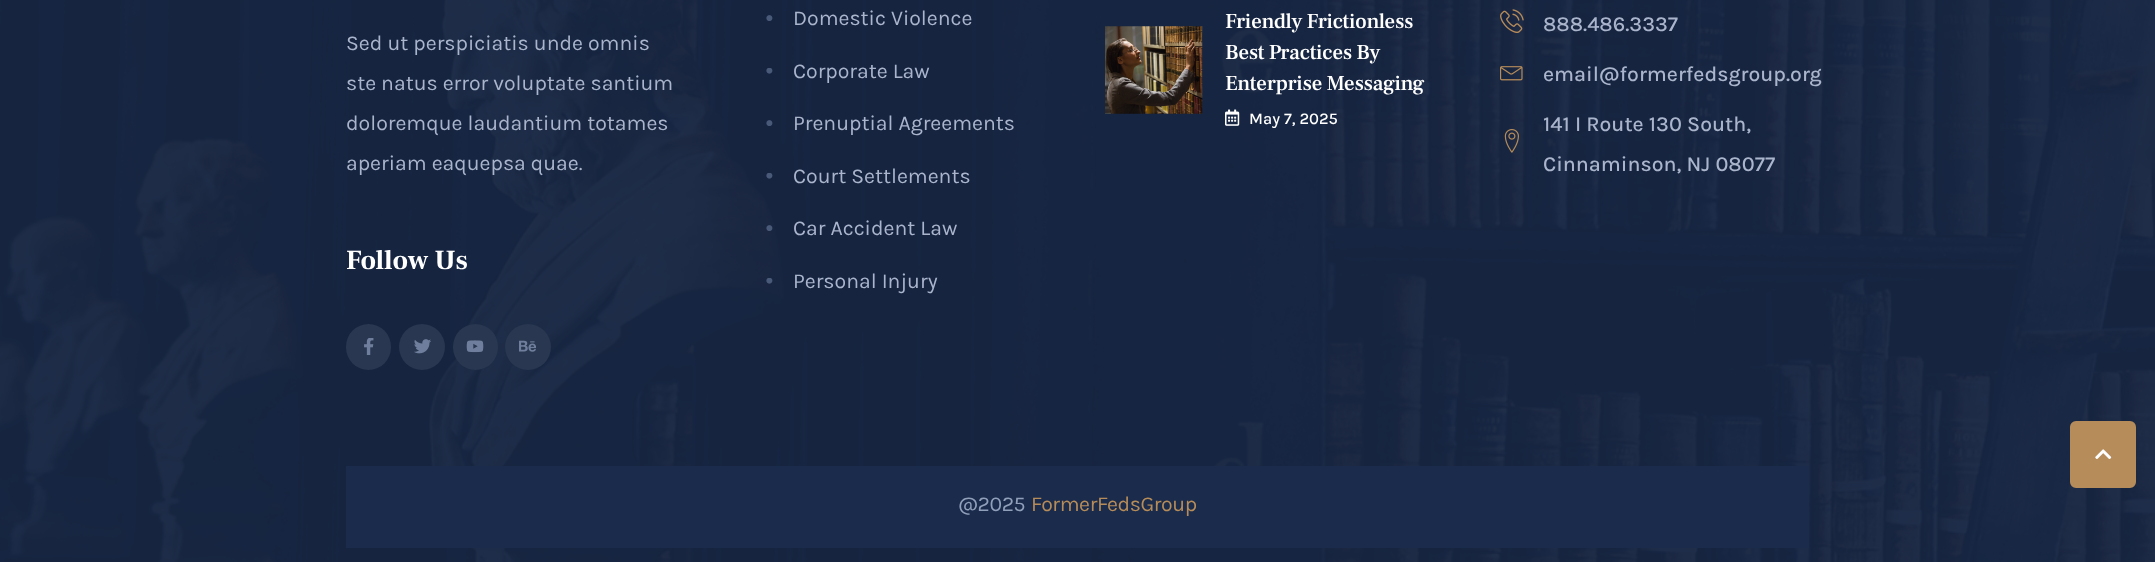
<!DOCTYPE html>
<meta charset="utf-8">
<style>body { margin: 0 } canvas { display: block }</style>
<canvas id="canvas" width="2155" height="562"></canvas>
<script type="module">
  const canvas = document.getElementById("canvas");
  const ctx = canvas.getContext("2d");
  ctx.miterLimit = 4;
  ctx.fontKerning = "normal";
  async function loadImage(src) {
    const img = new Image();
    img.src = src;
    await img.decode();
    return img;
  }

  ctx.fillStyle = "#ffffff";
  ctx.fillRect(0, 0, 2155, 562);
  ctx.drawImage(await loadImage("img1.png"), 0, 0, 2155, 562);
  ctx.font = "21.25px Karla";
  ctx.fillStyle = "#aab5cc";
  ctx.fillText("Sed ut perspiciatis unde omnis", 346, 50);
  ctx.fillText("ste natus error voluptate santium", 346, 90);
  ctx.fillText("doloremque laudantium totames", 346, 130);
  ctx.fillText("aperiam eaquepsa quae.", 346, 170);
  ctx.font = "bold 27.5px Frank Ruhl Libre";
  ctx.fillStyle = "#ffffff";
  ctx.fillText("Follow Us", 346, 269);
  ctx.fillStyle = "#293750";
  ctx.beginPath();
  ctx.roundRect(346, 324, 45, 46, 22.5);
  ctx.fill();
  ctx.drawImage(await loadImage("img2.png"), 364, 338, 10, 17);
  ctx.beginPath();
  ctx.arc(422, 347, 23, 0, Math.PI * 2);
  ctx.fill();
  ctx.drawImage(await loadImage("img3.png"), 414, 339, 17, 15);
  ctx.beginPath();
  ctx.roundRect(453, 324, 45, 46, 22.5);
  ctx.fill();
  ctx.drawImage(await loadImage("img4.png"), 466, 340, 18, 13);
  ctx.beginPath();
  ctx.arc(528, 347, 23, 0, Math.PI * 2);
  ctx.fill();
  ctx.drawImage(await loadImage("img5.png"), 519, 340, 17, 12);
  ctx.drawImage(await loadImage("img6.png"), 766, 15, 7, 6);
  ctx.font = "21.25px Karla";
  ctx.fillStyle = "#aab5cc";
  ctx.fillText("Domestic Violence", 793, 25);
  ctx.drawImage(await loadImage("img7.png"), 766, 68, 7, 6);
  ctx.fillText("Corporate Law", 793, 78);
  ctx.drawImage(await loadImage("img6.png"), 766, 120, 7, 6);
  ctx.fillText("Prenuptial Agreements", 793, 130);
  ctx.drawImage(await loadImage("img8.png"), 766, 173, 7, 6);
  ctx.fillText("Court Settlements", 793, 183);
  ctx.drawImage(await loadImage("img9.png"), 766, 225, 7, 6);
  ctx.fillText("Car Accident Law", 793, 235);
  ctx.drawImage(await loadImage("img10.png"), 766, 278, 7, 6);
  ctx.fillText("Personal Injury", 793, 288);
  ctx.drawImage(await loadImage("img11.png"), 1105, 26, 98, 88);
  ctx.letterSpacing = "-0.4px";
  ctx.font = "500 21.25px Frank Ruhl Libre";
  ctx.fillStyle = "#ffffff";
  ctx.fillText("Friendly Frictionless", 1225, 28);
  ctx.fillText("Best Practices By", 1225, 59);
  ctx.fillText("Enterprise Messaging", 1225, 90);
  ctx.drawImage(await loadImage("img12.png"), 1225, 109, 15, 17);
  ctx.letterSpacing = "0px";
  ctx.font = "500 16.25px Karla";
  ctx.fillText("May 7, 2025", 1249, 124);
  ctx.drawImage(await loadImage("img13.png"), 1500, 9, 24, 24);
  ctx.font = "500 21.25px Karla";
  ctx.fillStyle = "#aab5cc";
  ctx.fillText("888.486.3337", 1543, 31);
  ctx.drawImage(await loadImage("img14.png"), 1500, 66, 23, 15);
  ctx.fillText("email@formerfedsgroup.org", 1543, 81);
  ctx.drawImage(await loadImage("img15.png"), 1504, 129, 15, 24);
  ctx.fillText("141 I Route 130 South,", 1543, 131);
  ctx.fillText("Cinnaminson, NJ 08077", 1543, 171);
  ctx.fillStyle = "#b68c5a";
  ctx.beginPath();
  ctx.roundRect(2071.5, 422.5, 63, 64, 4.5);
  ctx.fill();
  ctx.strokeStyle = "#b68c5a";
  ctx.lineWidth = 3;
  ctx.stroke();
  ctx.drawImage(await loadImage("img16.png"), 2095, 449, 17, 10);
  ctx.fillStyle = "#1b2b4b";
  ctx.fillRect(346, 466, 1463, 82);
  ctx.letterSpacing = "-0.4px";
  ctx.font = "21.25px Karla";
  ctx.fillStyle = "#909fba";
  ctx.fillText("@2025", 958, 511);
  ctx.fillStyle = "#b68c5a";
  ctx.fillText("FormerFedsGroup", 1031, 511);
</script>
